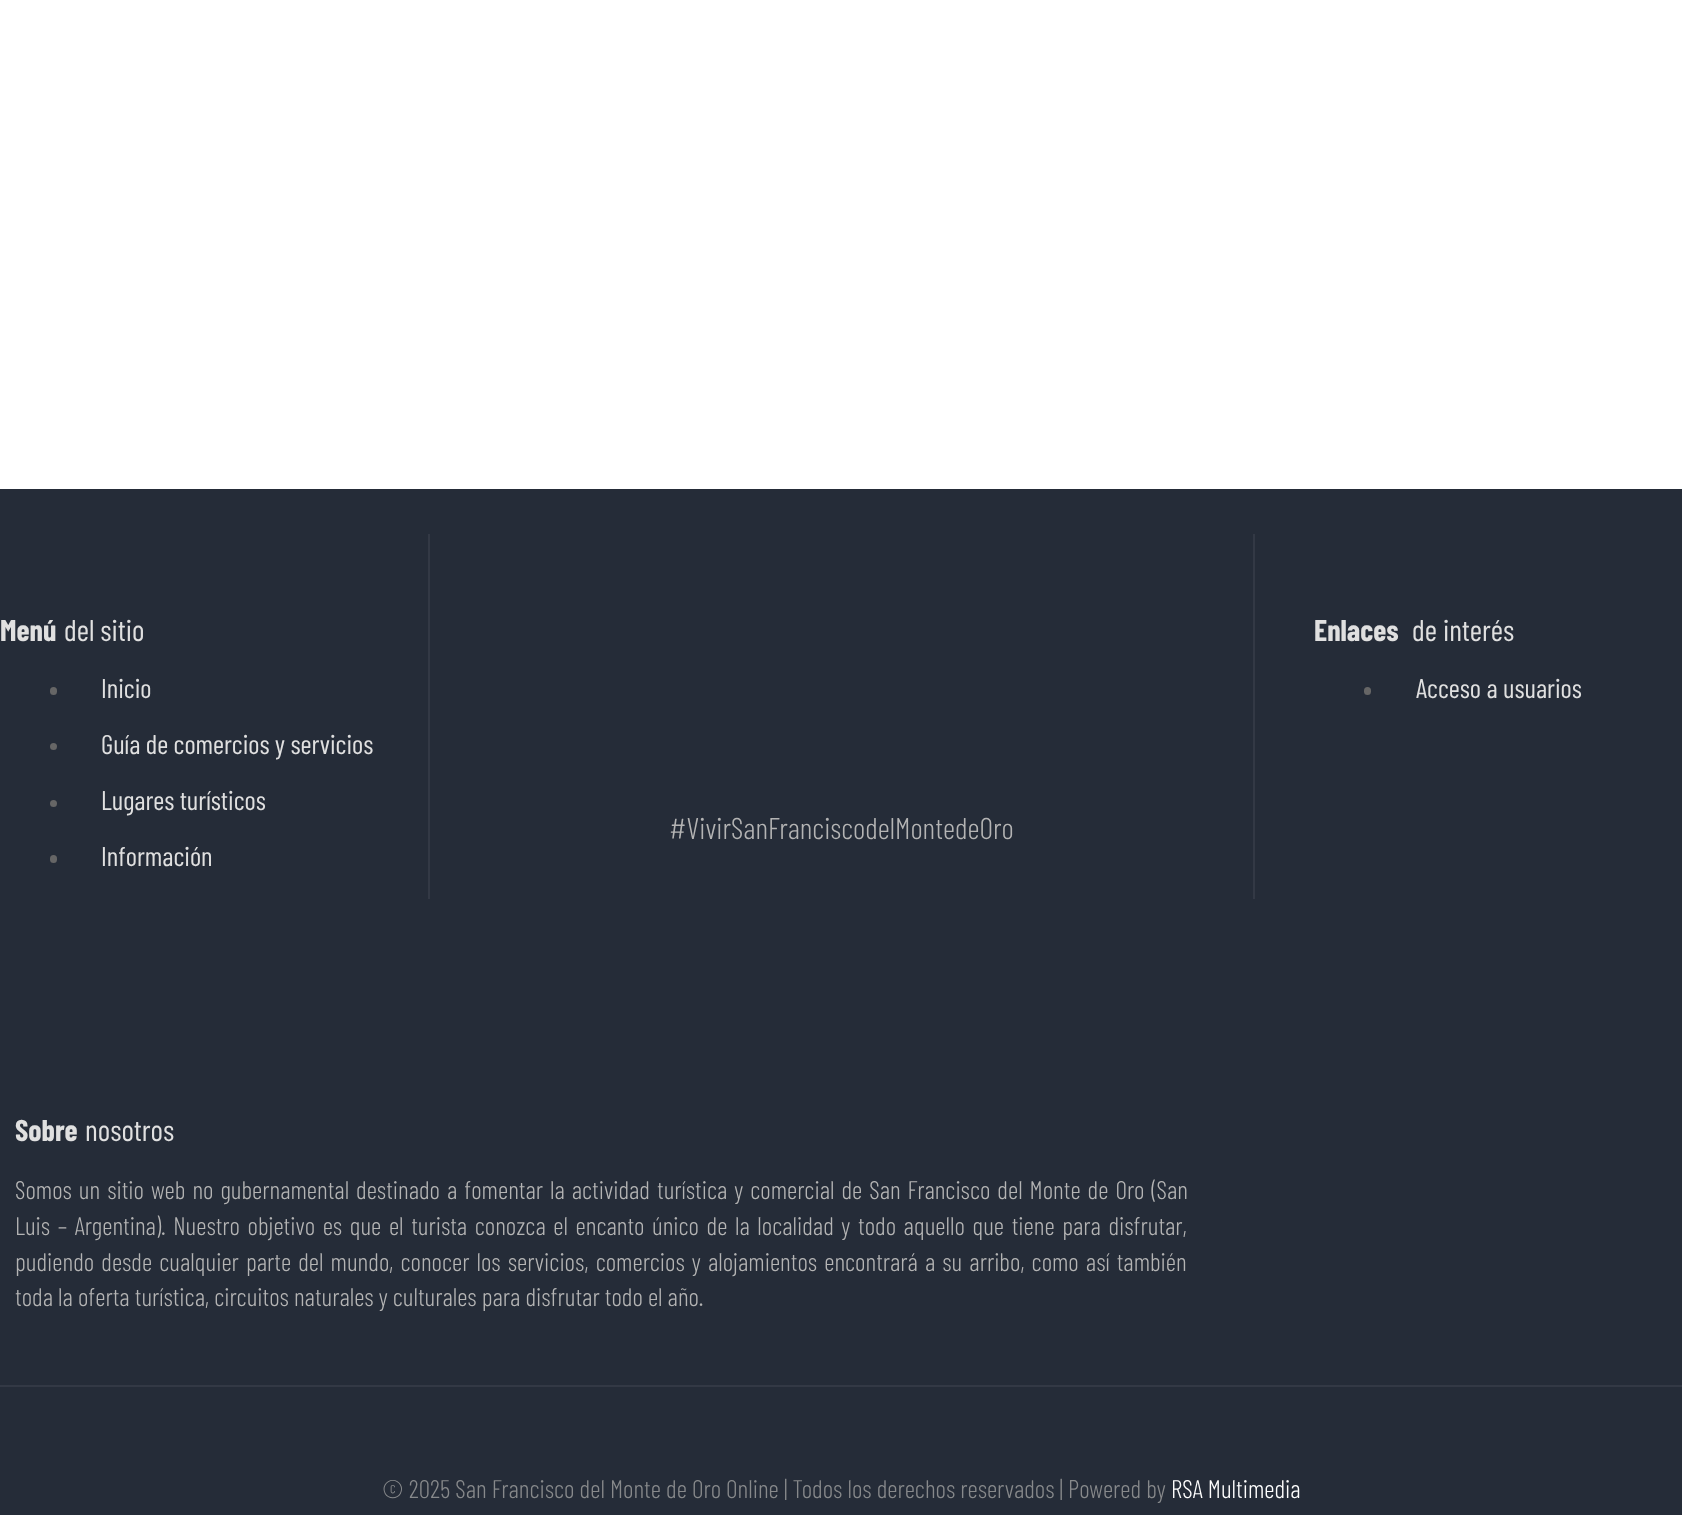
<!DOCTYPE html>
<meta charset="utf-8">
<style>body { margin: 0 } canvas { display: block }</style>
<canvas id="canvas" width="1682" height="1515"></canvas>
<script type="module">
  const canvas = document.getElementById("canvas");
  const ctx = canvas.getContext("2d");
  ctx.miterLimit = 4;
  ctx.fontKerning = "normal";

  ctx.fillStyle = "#ffffff";
  ctx.fillRect(0, 0, 1682, 1515);
  ctx.fillStyle = "#252c38";
  ctx.fillRect(0, 489, 1682, 1026);
  ctx.font = "bold 30px Barlow Condensed";
  ctx.fillStyle = "#e0e0e0";
  ctx.fillText("Menú", 0, 641);
  ctx.font = "30px Barlow Condensed";
  ctx.fillText("del sitio", 64, 641);
  ctx.fillStyle = "#666666";
  ctx.beginPath();
  ctx.roundRect(50, 687, 7, 8, 3.5);
  ctx.fill();
  ctx.font = "27px Barlow Condensed";
  ctx.fillStyle = "#e0e0e0";
  ctx.fillText("Inicio", 101, 698);
  ctx.fillStyle = "#666666";
  ctx.beginPath();
  ctx.arc(53.5, 746.5, 3.5, 0, Math.PI * 2);
  ctx.fill();
  ctx.fillStyle = "#e0e0e0";
  ctx.fillText("Guía de comercios y servicios", 101, 754);
  ctx.fillStyle = "#666666";
  ctx.beginPath();
  ctx.arc(53.5, 803.5, 3.5, 0, Math.PI * 2);
  ctx.fill();
  ctx.fillStyle = "#e0e0e0";
  ctx.fillText("Lugares turísticos", 101, 810);
  ctx.fillStyle = "#666666";
  ctx.beginPath();
  ctx.roundRect(50, 855, 7, 8, 3.5);
  ctx.fill();
  ctx.fillStyle = "#e0e0e0";
  ctx.fillText("Información", 101, 866);
  ctx.font = "bold 30px Barlow Condensed";
  ctx.fillText("Enlaces", 1314, 641);
  ctx.font = "30px Barlow Condensed";
  ctx.fillText("de interés", 1412, 641);
  ctx.fillStyle = "#666666";
  ctx.beginPath();
  ctx.roundRect(1364, 687, 7, 8, 3.5);
  ctx.fill();
  ctx.font = "27px Barlow Condensed";
  ctx.fillStyle = "#e0e0e0";
  ctx.fillText("Acceso a usuarios", 1416, 698);
  ctx.fillStyle = "#333945";
  ctx.fillRect(1253, 534, 2, 365);
  ctx.fillRect(428, 534, 2, 365);
  ctx.font = "300 30px Barlow Condensed";
  ctx.fillStyle = "#b4b4b4";
  ctx.fillText("#VivirSanFranciscodelMontedeOro", 669, 839);
  ctx.fillStyle = "#333945";
  ctx.fillRect(0, 1385, 1682, 2);
  ctx.font = "bold 30px Barlow Condensed";
  ctx.fillStyle = "#e0e0e0";
  ctx.fillText("Sobre", 15, 1141);
  ctx.font = "30px Barlow Condensed";
  ctx.fillText("nosotros", 85, 1141);
  ctx.wordSpacing = "1.9px";
  ctx.font = "300 25.5px Barlow Condensed";
  ctx.fillStyle = "#b4b4b4";
  ctx.fillText("Somos un sitio web no gubernamental destinado a fomentar la actividad turística y comercial de San Francisco del Monte de Oro (San", 15, 1199);
  ctx.wordSpacing = "2.5px";
  ctx.fillText("Luis – Argentina). Nuestro objetivo es que el turista conozca el encanto único de la localidad y todo aquello que tiene para disfrutar,", 15, 1235);
  ctx.wordSpacing = "2px";
  ctx.fillText("pudiendo desde cualquier parte del mundo, conocer los servicios, comercios y alojamientos encontrará a su arribo, como así también", 15, 1271);
  ctx.wordSpacing = "0px";
  ctx.fillText("toda la oferta turística, circuitos naturales y culturales para disfrutar todo el año.", 15, 1306);
  ctx.fillStyle = "#87898b";
  ctx.fillText("© 2025 San Francisco del Monte de Oro Online | Todos los derechos reservados | Powered by", 382, 1498);
  ctx.fillStyle = "#ffffff";
  ctx.fillText("RSA Multimedia", 1171, 1498);
</script>
